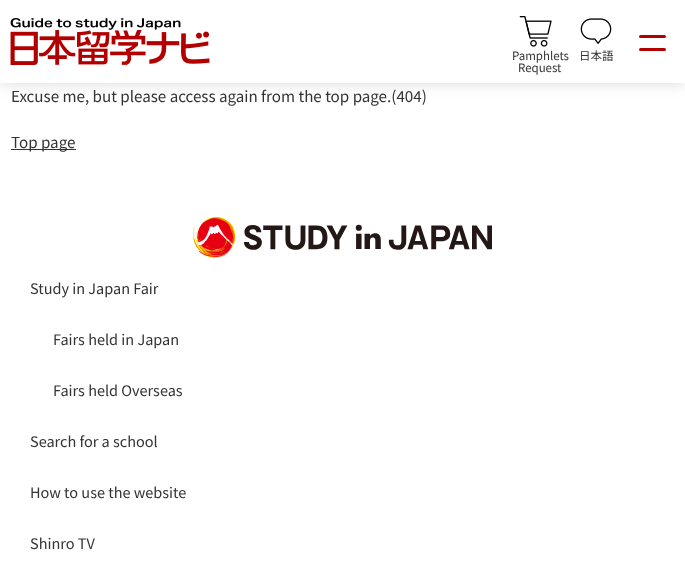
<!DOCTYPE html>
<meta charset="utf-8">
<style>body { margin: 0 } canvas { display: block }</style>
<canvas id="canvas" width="685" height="577"></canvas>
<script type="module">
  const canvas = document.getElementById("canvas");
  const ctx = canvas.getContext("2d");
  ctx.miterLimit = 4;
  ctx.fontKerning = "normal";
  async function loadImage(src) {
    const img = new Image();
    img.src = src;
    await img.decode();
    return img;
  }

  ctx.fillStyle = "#ffffff";
  ctx.fillRect(0, 0, 685, 577);
  ctx.fillStyle = "rgba(0, 0, 0, 0.15)";
  ctx.filter = "blur(7.5px)";
  ctx.beginPath();
  ctx.rect(0, 0, 685, 83);
  ctx.fill();
  ctx.filter = "none";
  ctx.fillStyle = "#ffffff";
  ctx.fillRect(0, 0, 685, 83);
  ctx.drawImage(await loadImage("img1.png"), 10, 18, 200, 47);
  ctx.fillStyle = "#b20000";
  ctx.beginPath();
  ctx.roundRect(639, 35, 27, 3, 1.5);
  ctx.fill();
  ctx.beginPath();
  ctx.roundRect(639, 48, 27, 3, 1.5);
  ctx.fill();
  ctx.drawImage(await loadImage("img2.png"), 519, 16, 33, 31);
  ctx.font = "11.5px Noto Sans JP";
  ctx.fillStyle = "#333333";
  ctx.fillText("Pamphlets", 512, 60);
  ctx.fillText("Request", 518, 72);
  ctx.drawImage(await loadImage("img3.png"), 580, 18, 32, 26);
  ctx.fillText("日本語", 579, 60);
  ctx.font = "15.2px Noto Sans JP";
  ctx.fillText("Excuse me, but please access again from the top page.(404)", 11, 102);
  ctx.fillRect(11, 149, 65, 1);
  ctx.fillText("Top page", 11, 148);
  ctx.drawImage(await loadImage("img4.png"), 193, 217, 299, 41);
  ctx.font = "14.5px Noto Sans JP";
  ctx.fillText("Study in Japan Fair", 30, 294);
  ctx.fillText("Fairs held in Japan", 53, 345);
  ctx.fillText("Fairs held Overseas", 53, 396);
  ctx.fillText("Search for a school", 30, 447);
  ctx.fillText("How to use the website", 30, 498);
  ctx.fillText("Shinro TV", 30, 549);
</script>
